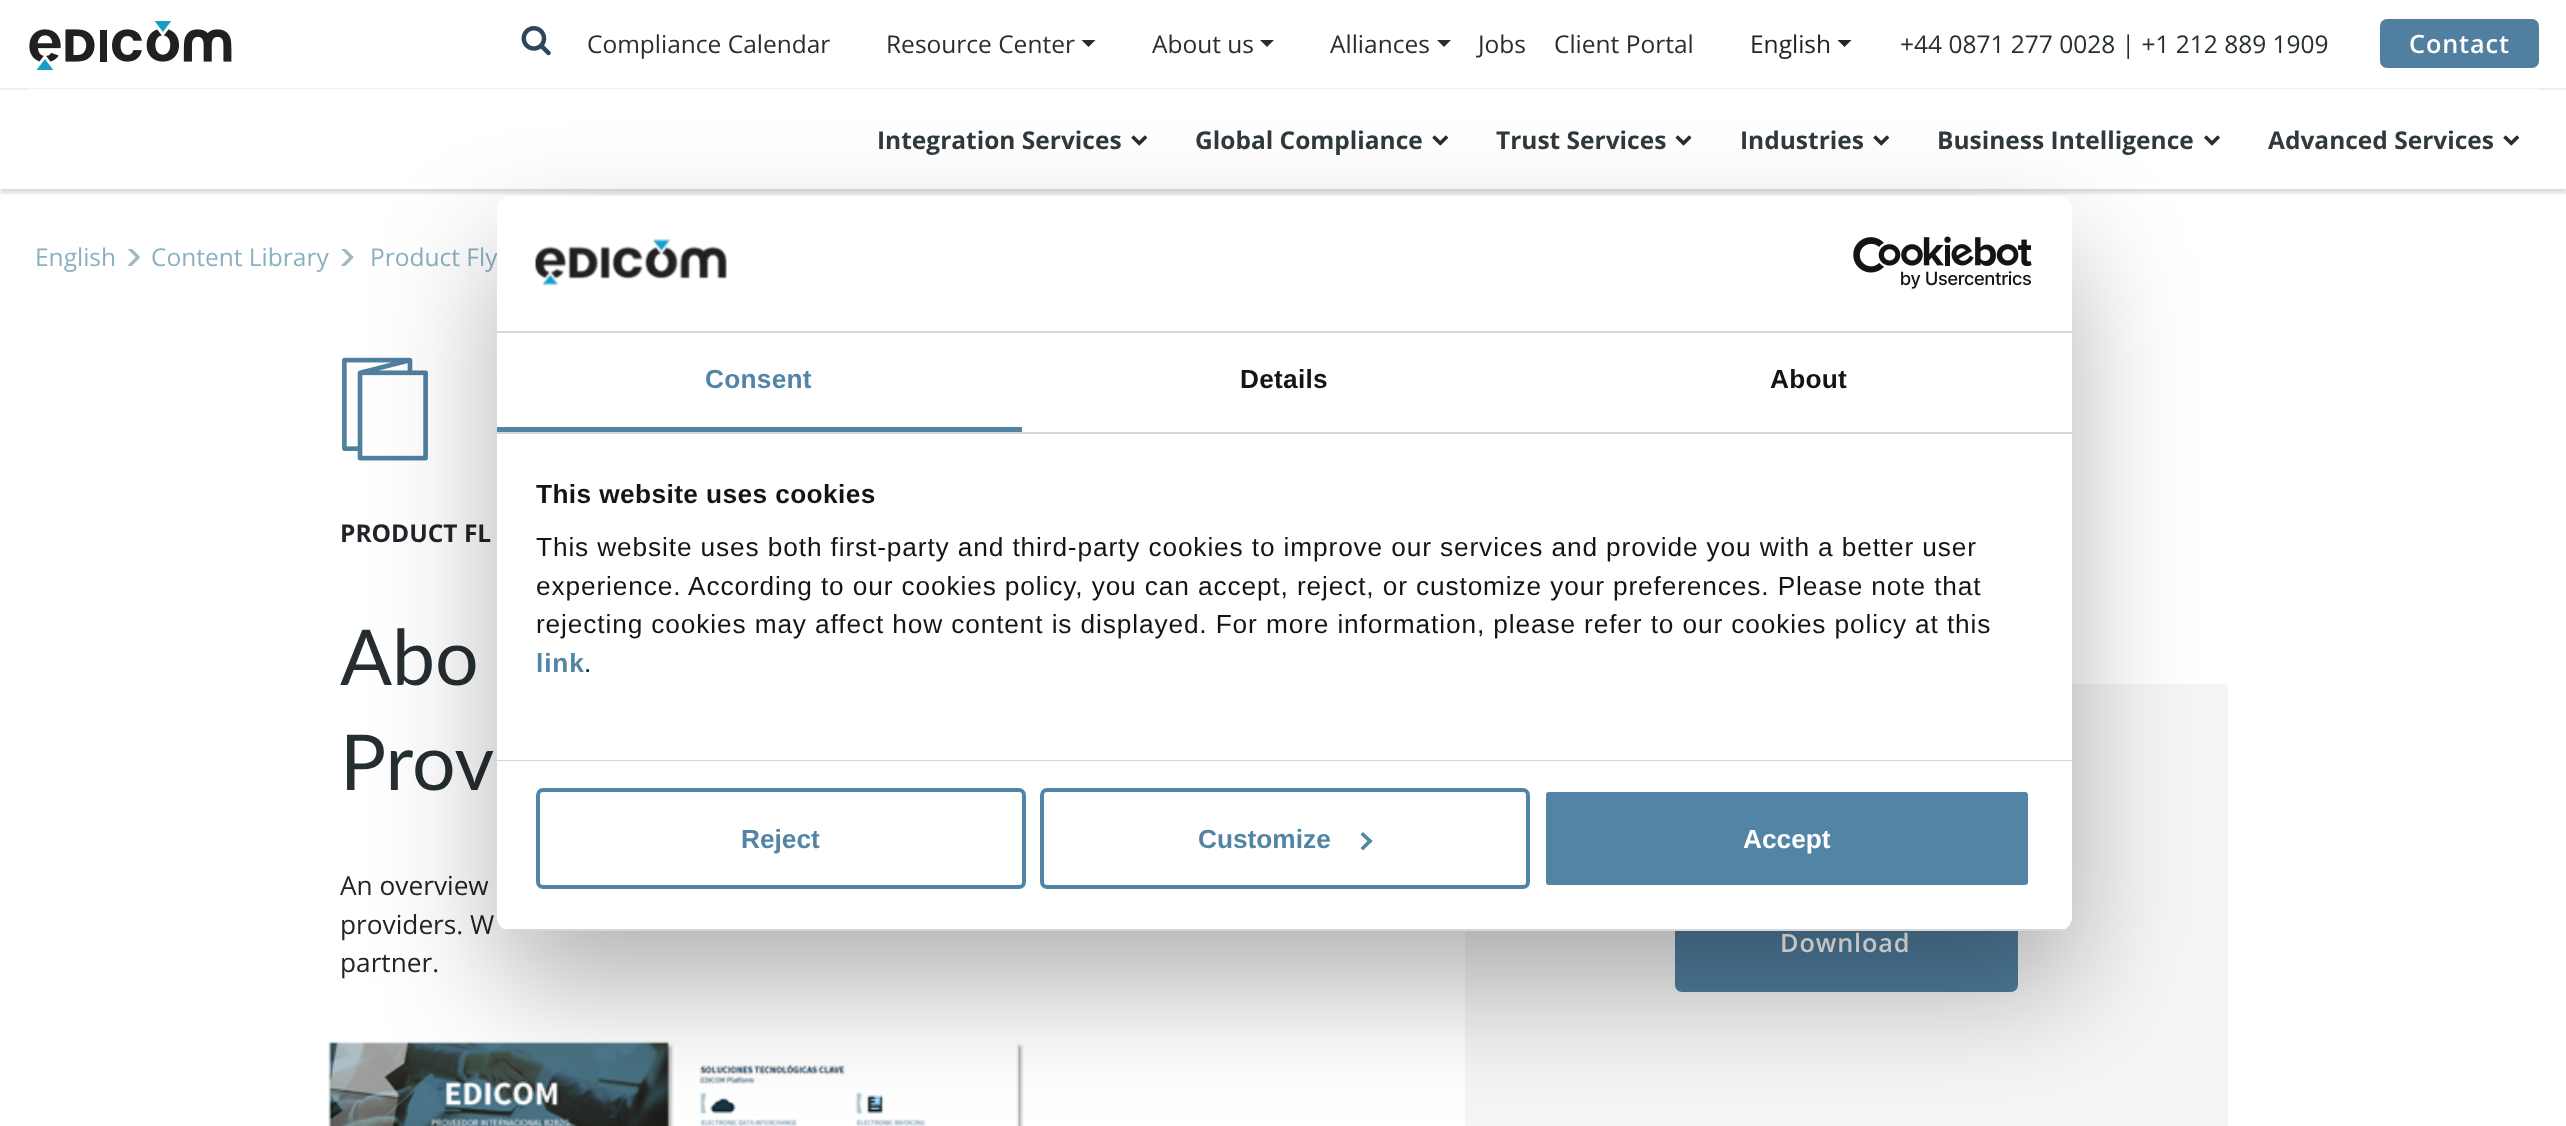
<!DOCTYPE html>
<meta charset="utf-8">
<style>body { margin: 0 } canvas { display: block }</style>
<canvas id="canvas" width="2566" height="1126"></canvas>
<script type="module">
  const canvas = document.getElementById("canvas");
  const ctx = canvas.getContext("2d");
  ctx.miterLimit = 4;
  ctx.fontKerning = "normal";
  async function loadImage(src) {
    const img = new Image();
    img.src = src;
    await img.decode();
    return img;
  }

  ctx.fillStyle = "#ffffff";
  ctx.fillRect(0, 0, 2566, 1126);
  ctx.drawImage(await loadImage("img1.png"), 29, 21, 203, 49);
  ctx.drawImage(await loadImage("img2.png"), 521, 26, 30, 30);
  ctx.font = "24.5px Open Sans";
  ctx.fillStyle = "#262e32";
  ctx.fillText("Compliance Calendar", 587, 53);
  ctx.fillText("Resource Center", 886, 53);
  ctx.beginPath();
  ctx.moveTo(1081.5, 40);
  ctx.lineTo(1095.5, 40);
  ctx.lineTo(1088.5, 47);
  ctx.closePath();
  ctx.fill();
  ctx.fillText("About us", 1152, 53);
  ctx.beginPath();
  ctx.moveTo(1260, 40);
  ctx.lineTo(1274, 40);
  ctx.lineTo(1267, 47);
  ctx.closePath();
  ctx.fill();
  ctx.fillText("Alliances", 1330, 53);
  ctx.beginPath();
  ctx.moveTo(1437, 40);
  ctx.lineTo(1451, 40);
  ctx.lineTo(1444, 47);
  ctx.closePath();
  ctx.fill();
  ctx.fillText("Jobs", 1478, 53);
  ctx.fillText("Client Portal", 1554, 53);
  ctx.fillStyle = "#212529";
  ctx.fillText("English", 1750, 53);
  ctx.beginPath();
  ctx.moveTo(1837.5, 40);
  ctx.lineTo(1851.5, 40);
  ctx.lineTo(1844.5, 47);
  ctx.closePath();
  ctx.fill();
  ctx.fillStyle = "#262e32";
  ctx.fillText("+44 0871 277 0028 | +1 212 889 1909", 1900, 53);
  ctx.fillStyle = "#517f9f";
  ctx.beginPath();
  ctx.roundRect(2380, 19, 159, 49, 7);
  ctx.fill();
  ctx.letterSpacing = "0.88px";
  ctx.font = "600 25.25px Open Sans";
  ctx.fillStyle = "#ffffff";
  ctx.fillText("Contact", 2409, 53);
  ctx.fillStyle = "#ecf0f0";
  ctx.fillRect(0, 88, 2566, 2);
  ctx.save();
  ctx.beginPath();
  ctx.rect(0, 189, 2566, 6);
  ctx.clip();
  ctx.fillStyle = "rgba(0, 0, 0, 0.15)";
  ctx.filter = "blur(2px)";
  ctx.beginPath();
  ctx.rect(0, 93, 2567, 100);
  ctx.fill();
  ctx.filter = "none";
  ctx.restore();
  ctx.fillStyle = "#ffffff";
  ctx.fillRect(28, 89, 2511, 1);
  ctx.letterSpacing = "0px";
  ctx.font = "bold 24.5px Open Sans";
  ctx.fillStyle = "#2f393e";
  ctx.fillText("Integration Services", 877, 149);
  ctx.drawImage(await loadImage("img3.png"), 1131, 135, 17, 11);
  ctx.fillText("Global Compliance", 1195, 149);
  ctx.drawImage(await loadImage("img3.png"), 1432, 135, 17, 11);
  ctx.fillText("Trust Services", 1496, 149);
  ctx.drawImage(await loadImage("img4.png"), 1675, 135, 17, 11);
  ctx.fillText("Industries", 1740, 149);
  ctx.drawImage(await loadImage("img5.png"), 1873, 135, 17, 11);
  ctx.fillText("Business Intelligence", 1937, 149);
  ctx.drawImage(await loadImage("img6.png"), 2204, 135, 16, 11);
  ctx.fillText("Advanced Services", 2268, 149);
  ctx.drawImage(await loadImage("img3.png"), 2503, 135, 17, 11);
  ctx.font = "24.5px Open Sans";
  ctx.fillStyle = "#8bb0c0";
  ctx.fillText("English", 35, 266);
  ctx.drawImage(await loadImage("img7.png"), 127, 249, 13, 17);
  ctx.fillText("Content Library", 151, 266);
  ctx.drawImage(await loadImage("img8.png"), 340, 249, 14, 17);
  ctx.fillText("Product Fly", 370, 266);
  ctx.drawImage(await loadImage("img9.png"), 342, 357, 86, 104);
  ctx.font = "bold 24.5px Open Sans";
  ctx.fillStyle = "#212529";
  ctx.fillText("PRODUCT FL", 340, 542);
  ctx.font = "77px Lato";
  ctx.fillStyle = "#262e32";
  ctx.fillText("Abo", 340, 685);
  ctx.fillText("Prov", 340, 790);
  ctx.font = "26.25px Open Sans";
  ctx.fillStyle = "#212529";
  ctx.fillText("An overview", 340, 895);
  ctx.fillText("providers. W", 340, 934);
  ctx.fillText("partner.", 340, 972);
  ctx.drawImage(await loadImage("img10.png"), 328, 1041, 346, 85);
  ctx.drawImage(await loadImage("img11.png"), 699, 1043, 325, 83);
  ctx.fillStyle = "#f5f5f5";
  ctx.fillRect(1465, 684, 763, 442);
  ctx.fillStyle = "#517f9f";
  ctx.beginPath();
  ctx.roundRect(1675, 894, 343, 98, 7);
  ctx.fill();
  ctx.letterSpacing = "0.88px";
  ctx.font = "600 25.25px Open Sans";
  ctx.fillStyle = "#ffffff";
  ctx.fillText("Download", 1780, 952);
  ctx.fillStyle = "rgba(0, 0, 0, 0.3)";
  ctx.filter = "blur(59.5px)";
  ctx.beginPath();
  ctx.roundRect(497, 252, 1575, 735, 14);
  ctx.fill();
  ctx.filter = "none";
  ctx.fillStyle = "#ffffff";
  ctx.beginPath();
  ctx.roundRect(497, 196, 1575, 735, 14);
  ctx.fill();
  ctx.fillStyle = "#d6d6d6";
  ctx.fillRect(497, 331, 1575, 2);
  ctx.drawImage(await loadImage("img12.png"), 535, 238, 192, 48);
  ctx.drawImage(await loadImage("img13.png"), 1853, 236, 179, 53);
  ctx.fillRect(497, 432, 1575, 2);
  ctx.fillStyle = "#5285a5";
  ctx.fillRect(497, 427, 525, 5);
  ctx.letterSpacing = "0.25px";
  ctx.font = "bold 26.25px Liberation Sans";
  ctx.fillText("Consent", 705, 388);
  ctx.fillStyle = "#141414";
  ctx.fillText("Details", 1240, 388);
  ctx.fillText("About", 1770, 388);
  ctx.fillStyle = "#d6d6d6";
  ctx.fillRect(497, 760, 1575, 1);
  ctx.letterSpacing = "0.4px";
  ctx.fillStyle = "#141414";
  ctx.fillText("This website uses cookies", 536, 503);
  ctx.letterSpacing = "0.88px";
  ctx.font = "26.25px Liberation Sans";
  ctx.fillText("This website uses both first-party and third-party cookies to improve our services and provide you with a better user", 536, 556);
  ctx.fillText("experience. According to our cookies policy, you can accept, reject, or customize your preferences. Please note that", 536, 595);
  ctx.fillText("rejecting cookies may affect how content is displayed. For more information, please refer to our cookies policy at this", 536, 633);
  ctx.font = "bold 26.25px Liberation Sans";
  ctx.fillStyle = "#5285a5";
  ctx.fillText("link", 536, 672);
  ctx.font = "26.25px Liberation Sans";
  ctx.fillStyle = "#141414";
  ctx.fillText(".", 584, 672);
  ctx.save();
  ctx.beginPath();
  ctx.roundRect(497, 196, 1575, 735, 14);
  ctx.clip();
  ctx.fillStyle = "#d6d6d6";
  ctx.fillRect(497, 929, 1575, 2);
  ctx.restore();
  ctx.beginPath();
  ctx.roundRect(538, 790, 486, 97, 5);
  ctx.strokeStyle = "#5285a5";
  ctx.lineWidth = 4;
  ctx.stroke();
  ctx.letterSpacing = "0px";
  ctx.font = "bold 26.25px Liberation Sans";
  ctx.fillStyle = "#5285a5";
  ctx.fillText("Reject", 741, 848);
  ctx.beginPath();
  ctx.roundRect(1042, 790, 486, 97, 5);
  ctx.stroke();
  ctx.fillText("Customize", 1198, 848);
  ctx.beginPath();
  ctx.moveTo(1363, 832);
  ctx.lineTo(1372.5, 841);
  ctx.lineTo(1370, 843.5);
  ctx.lineTo(1360.5, 834.5);
  ctx.closePath();
  ctx.fill();
  ctx.beginPath();
  ctx.moveTo(1370, 838.5);
  ctx.lineTo(1372.5, 841);
  ctx.lineTo(1363, 850.5);
  ctx.lineTo(1360.5, 848);
  ctx.closePath();
  ctx.fill();
  ctx.beginPath();
  ctx.roundRect(1544, 790, 486, 97, 5);
  ctx.fill();
  ctx.strokeStyle = "#ffffff";
  ctx.stroke();
  ctx.fillStyle = "#ffffff";
  ctx.fillText("Accept", 1743, 848);
</script>
